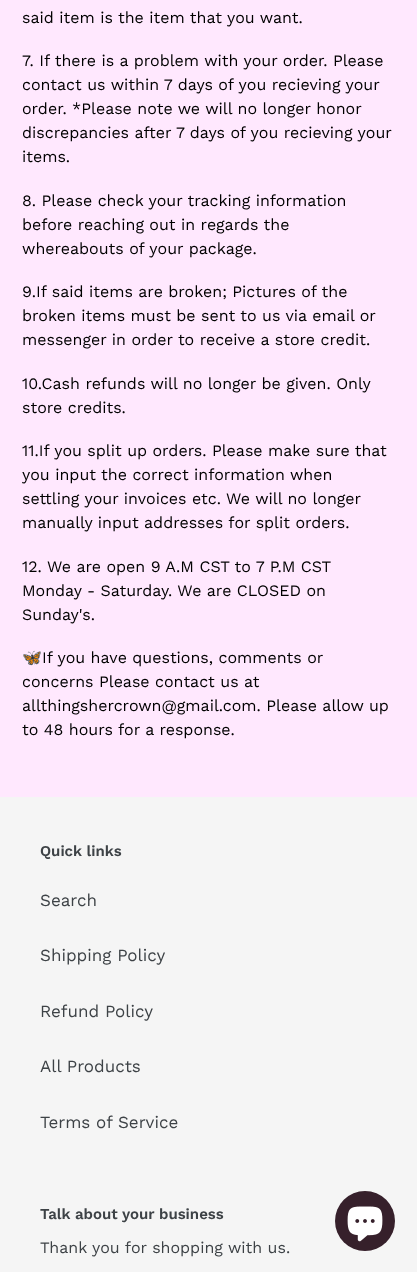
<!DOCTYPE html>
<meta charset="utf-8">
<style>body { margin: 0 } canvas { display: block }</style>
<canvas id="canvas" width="417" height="1272"></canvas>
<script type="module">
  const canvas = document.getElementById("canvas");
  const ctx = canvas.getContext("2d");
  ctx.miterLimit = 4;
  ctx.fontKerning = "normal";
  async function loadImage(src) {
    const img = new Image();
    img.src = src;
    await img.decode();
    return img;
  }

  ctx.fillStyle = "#ffe8fe";
  ctx.fillRect(0, 0, 417, 1272);
  ctx.font = "16px Work Sans";
  ctx.fillStyle = "#000000";
  ctx.fillText("said item is the item that you want.", 22, 23);
  ctx.fillText("7. If there is a problem with your order. Please", 22, 66);
  ctx.fillText("contact us within 7 days of you recieving your", 22, 90);
  ctx.fillText("order. *Please note we will no longer honor", 22, 114);
  ctx.fillText("discrepancies after 7 days of you recieving your", 22, 138);
  ctx.fillText("items.", 22, 162);
  ctx.fillText("8. Please check your tracking information", 22, 206);
  ctx.fillText("before reaching out in regards the", 22, 230);
  ctx.fillText("whereabouts of your package.", 22, 254);
  ctx.fillText("9.If said items are broken; Pictures of the", 22, 297);
  ctx.fillText("broken items must be sent to us via email or", 22, 321);
  ctx.fillText("messenger in order to receive a store credit.", 22, 345);
  ctx.fillText("10.Cash refunds will no longer be given. Only", 22, 389);
  ctx.fillText("store credits.", 22, 413);
  ctx.fillText("11.If you split up orders. Please make sure that", 22, 456);
  ctx.fillText("you input the correct information when", 22, 480);
  ctx.fillText("settling your invoices etc. We will no longer", 22, 504);
  ctx.fillText("manually input addresses for split orders.", 22, 528);
  ctx.fillText("12. We are open 9 A.M CST to 7 P.M CST", 22, 572);
  ctx.fillText("Monday - Saturday. We are CLOSED on", 22, 596);
  ctx.fillText("Sunday's.", 22, 620);
  ctx.font = "16px Noto Color Emoji";
  ctx.fillText("🦋", 22, 663);
  ctx.font = "16px Work Sans";
  ctx.fillText("If you have questions, comments or", 42, 663);
  ctx.fillText("concerns Please contact us at", 22, 687);
  ctx.fillText("allthingshercrown@gmail.com. Please allow up", 22, 711);
  ctx.fillText("to 48 hours for a response.", 22, 735);
  ctx.fillStyle = "#f5f5f5";
  ctx.fillRect(0, 797, 417, 475);
  ctx.font = "600 15px Work Sans";
  ctx.fillStyle = "#3d4246";
  ctx.fillText("Quick links", 40, 856);
  ctx.font = "17px Work Sans";
  ctx.fillText("Search", 40, 906);
  ctx.fillText("Shipping Policy", 40, 961);
  ctx.fillText("Refund Policy", 40, 1017);
  ctx.fillText("All Products", 40, 1072);
  ctx.fillText("Terms of Service", 40, 1128);
  ctx.font = "600 15px Work Sans";
  ctx.fillText("Talk about your business", 40, 1219);
  ctx.font = "16px Work Sans";
  ctx.fillText("Thank you for shopping with us.", 40, 1253);
  ctx.fillStyle = "#36202b";
  ctx.beginPath();
  ctx.arc(365, 1221, 30, 0, Math.PI * 2);
  ctx.fill();
  ctx.drawImage(await loadImage("img1.png"), 347, 1206, 36, 36);
</script>
